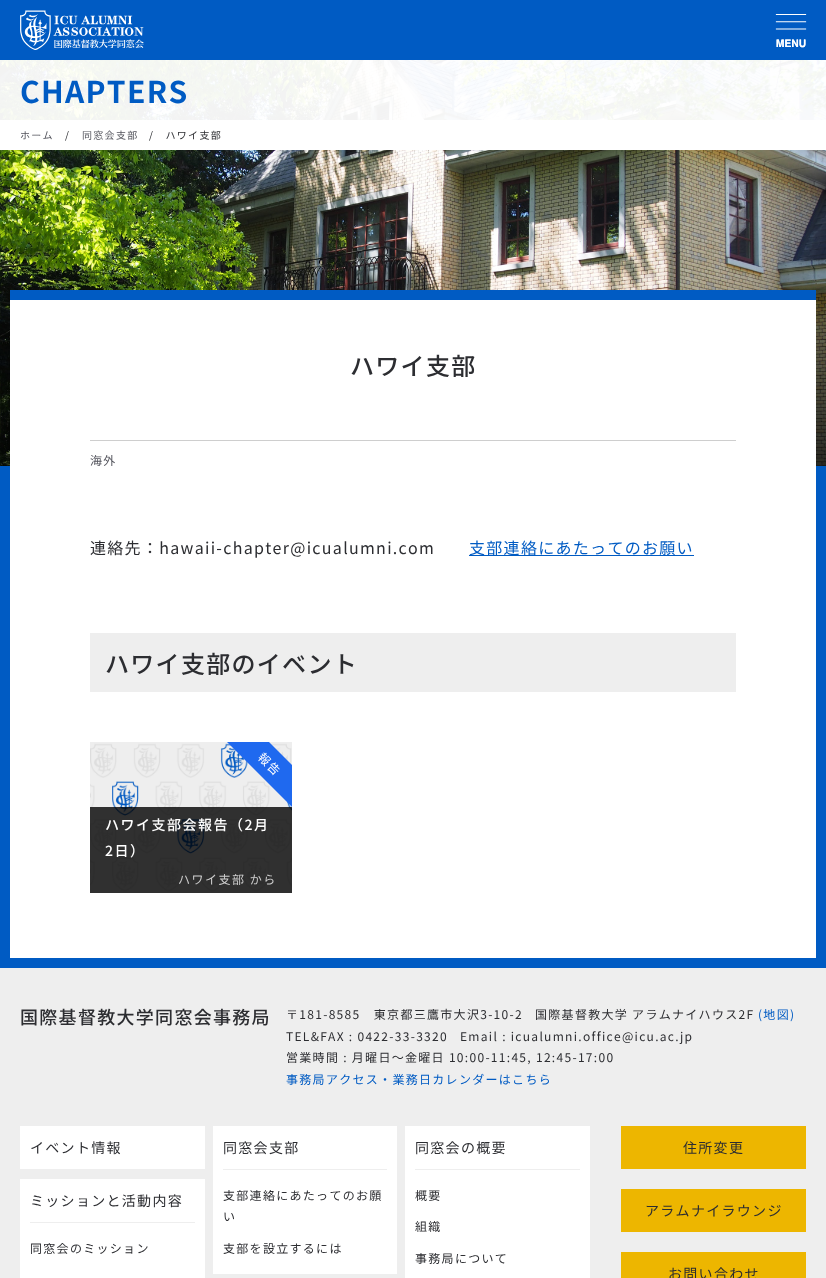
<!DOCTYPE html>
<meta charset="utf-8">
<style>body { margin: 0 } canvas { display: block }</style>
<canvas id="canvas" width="826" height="1278"></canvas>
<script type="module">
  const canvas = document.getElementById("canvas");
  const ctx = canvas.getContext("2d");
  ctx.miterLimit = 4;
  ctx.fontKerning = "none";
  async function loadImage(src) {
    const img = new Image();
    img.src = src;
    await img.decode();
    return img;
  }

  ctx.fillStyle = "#ffffff";
  ctx.fillRect(0, 0, 826, 1278);
  ctx.fillStyle = "#005bc3";
  ctx.fillRect(0, 0, 826, 60);
  ctx.drawImage(await loadImage("img1.png"), 20, 10, 124, 40);
  ctx.drawImage(await loadImage("img2.png"), 775, 14, 32, 34);
  ctx.fillRect(816, 466, 10, 492);
  ctx.fillRect(0, 466, 10, 492);
  ctx.drawImage(await loadImage("img3.png"), 0, 60, 826, 406);
  ctx.fillStyle = "rgba(255, 255, 255, 0.95)";
  ctx.fillRect(0, 60, 826, 60);
  ctx.letterSpacing = "1.3px";
  ctx.font = "bold 30px Noto Sans JP";
  ctx.fillStyle = "#005bc3";
  ctx.fillText("CHAPTERS", 20, 103);
  ctx.fillStyle = "#ffffff";
  ctx.fillRect(0, 120, 826, 30);
  ctx.font = "10px Noto Sans JP";
  ctx.fillStyle = "#53545c";
  ctx.fillText("ホーム", 20, 139);
  ctx.fillStyle = "#2c2d31";
  ctx.fillText("/", 65, 139);
  ctx.fillStyle = "#53545c";
  ctx.fillText("同窓会支部", 82, 139);
  ctx.fillStyle = "#2c2d31";
  ctx.fillText("/　ハワイ支部", 149, 139);
  ctx.fillStyle = "#ffffff";
  ctx.fillRect(10, 300, 806, 166);
  ctx.fillStyle = "#005bc3";
  ctx.fillRect(10, 290, 806, 10);
  ctx.font = "500 24px Noto Sans JP";
  ctx.fillStyle = "#2c2d31";
  ctx.fillText("ハワイ支部", 350, 375);
  ctx.fillStyle = "#cecece";
  ctx.fillRect(90, 440, 646, 1);
  ctx.font = "12px Noto Sans JP";
  ctx.fillStyle = "#53545c";
  ctx.fillText("海外", 90, 465);
  ctx.font = "16px Noto Sans JP";
  ctx.fillStyle = "#2c2d31";
  ctx.fillText("連絡先：hawaii-chapter@icualumni.com", 90, 554);
  ctx.fillStyle = "#005bc3";
  ctx.fillRect(469, 555, 225, 1);
  ctx.fillText("支部連絡にあたってのお願い", 469, 554);
  ctx.fillStyle = "#eeeeee";
  ctx.fillRect(90, 633, 646, 59);
  ctx.font = "500 24px Noto Sans JP";
  ctx.fillStyle = "#2c2d31";
  ctx.fillText("ハワイ支部のイベント", 105, 673);
  ctx.drawImage(await loadImage("img4.png"), 90, 742, 202, 151);
  ctx.save();
  ctx.beginPath();
  ctx.rect(90, 742, 202, 151);
  ctx.clip();
  ctx.fillStyle = "#1f69ef";
  ctx.beginPath();
  ctx.moveTo(231, 704);
  ctx.lineTo(316, 789);
  ctx.lineTo(295, 810);
  ctx.lineTo(210, 725);
  ctx.closePath();
  ctx.fill();
  ctx.restore();
  ctx.letterSpacing = "1.5px";
  ctx.font = "12px Noto Sans JP";
  ctx.fillStyle = "#ffffff";
  ctx.save();
  ctx.translate(257, 758);
  ctx.rotate(45 * Math.PI / 180);
  ctx.fillText("報告", 0, 0);
  ctx.restore();
  ctx.fillStyle = "rgba(0, 0, 0, 0.8)";
  ctx.fillRect(90, 807, 202, 86);
  ctx.font = "500 14px Noto Sans JP";
  ctx.fillStyle = "#ffffff";
  ctx.fillText("ハワイ支部会報告（2月", 105, 830);
  ctx.fillText("2日）", 105, 856);
  ctx.font = "12px Noto Sans JP";
  ctx.fillStyle = "#cecece";
  ctx.fillText("ハワイ支部 から", 178, 884);
  ctx.fillStyle = "#eeeeee";
  ctx.fillRect(0, 968, 826, 310);
  ctx.fillStyle = "#005bc3";
  ctx.fillRect(0, 958, 826, 10);
  ctx.letterSpacing = "1.3px";
  ctx.font = "500 18px Noto Sans JP";
  ctx.fillStyle = "#2c2d31";
  ctx.fillText("国際基督教大学同窓会事務局", 20, 1024);
  ctx.font = "12px Noto Sans JP";
  ctx.fillText("〒181-8585　東京都三鷹市大沢3-10-2", 286, 1019);
  ctx.fillText("国際基督教大学 アラムナイハウス2F", 535, 1019);
  ctx.fillStyle = "#005bc3";
  ctx.fillText("(地図)", 758, 1019);
  ctx.fillStyle = "#2c2d31";
  ctx.fillText("TEL&FAX : 0422-33-3320", 286, 1041);
  ctx.fillText("Email : icualumni.office@icu.ac.jp", 460, 1041);
  ctx.fillText("営業時間 : 月曜日～金曜日 10:00-11:45, 12:45-17:00", 286, 1062);
  ctx.fillStyle = "#005bc3";
  ctx.fillText("事務局アクセス・業務日カレンダーはこちら", 286, 1084);
  ctx.fillStyle = "#ffffff";
  ctx.fillRect(20, 1126, 185, 43);
  ctx.font = "14px Noto Sans JP";
  ctx.fillStyle = "#2c2d31";
  ctx.fillText("イベント情報", 30, 1153);
  ctx.fillStyle = "#ffffff";
  ctx.fillRect(20, 1179, 185, 99);
  ctx.fillStyle = "#2c2d31";
  ctx.fillText("ミッションと活動内容", 30, 1206);
  ctx.fillStyle = "#eeeeee";
  ctx.fillRect(30, 1222, 165, 1);
  ctx.font = "12px Noto Sans JP";
  ctx.fillStyle = "#2c2d31";
  ctx.fillText("同窓会のミッション", 30, 1253);
  ctx.fillStyle = "#ffffff";
  ctx.fillRect(213, 1126, 184, 148);
  ctx.font = "14px Noto Sans JP";
  ctx.fillStyle = "#2c2d31";
  ctx.fillText("同窓会支部", 223, 1153);
  ctx.fillStyle = "#eeeeee";
  ctx.fillRect(223, 1169, 164, 1);
  ctx.font = "12px Noto Sans JP";
  ctx.fillStyle = "#2c2d31";
  ctx.fillText("支部連絡にあたってのお願", 223, 1200);
  ctx.fillText("い", 223, 1221);
  ctx.fillText("支部を設立するには", 223, 1253);
  ctx.fillStyle = "#ffffff";
  ctx.fillRect(405, 1126, 185, 152);
  ctx.font = "14px Noto Sans JP";
  ctx.fillStyle = "#2c2d31";
  ctx.fillText("同窓会の概要", 415, 1153);
  ctx.fillStyle = "#eeeeee";
  ctx.fillRect(415, 1169, 165, 1);
  ctx.font = "12px Noto Sans JP";
  ctx.fillStyle = "#2c2d31";
  ctx.fillText("概要", 415, 1200);
  ctx.fillText("組織", 415, 1231);
  ctx.fillText("事務局について", 415, 1263);
  ctx.fillStyle = "#edb600";
  ctx.fillRect(621, 1126, 185, 43);
  ctx.font = "14px Noto Sans JP";
  ctx.fillStyle = "#2c2d31";
  ctx.fillText("住所変更", 683, 1153);
  ctx.fillStyle = "#edb600";
  ctx.fillRect(621, 1189, 185, 43);
  ctx.fillStyle = "#2c2d31";
  ctx.fillText("アラムナイラウンジ", 645, 1216);
  ctx.fillStyle = "#edb600";
  ctx.fillRect(621, 1252, 185, 26);
  ctx.fillStyle = "#2c2d31";
  ctx.fillText("お問い合わせ", 668, 1279);
</script>
